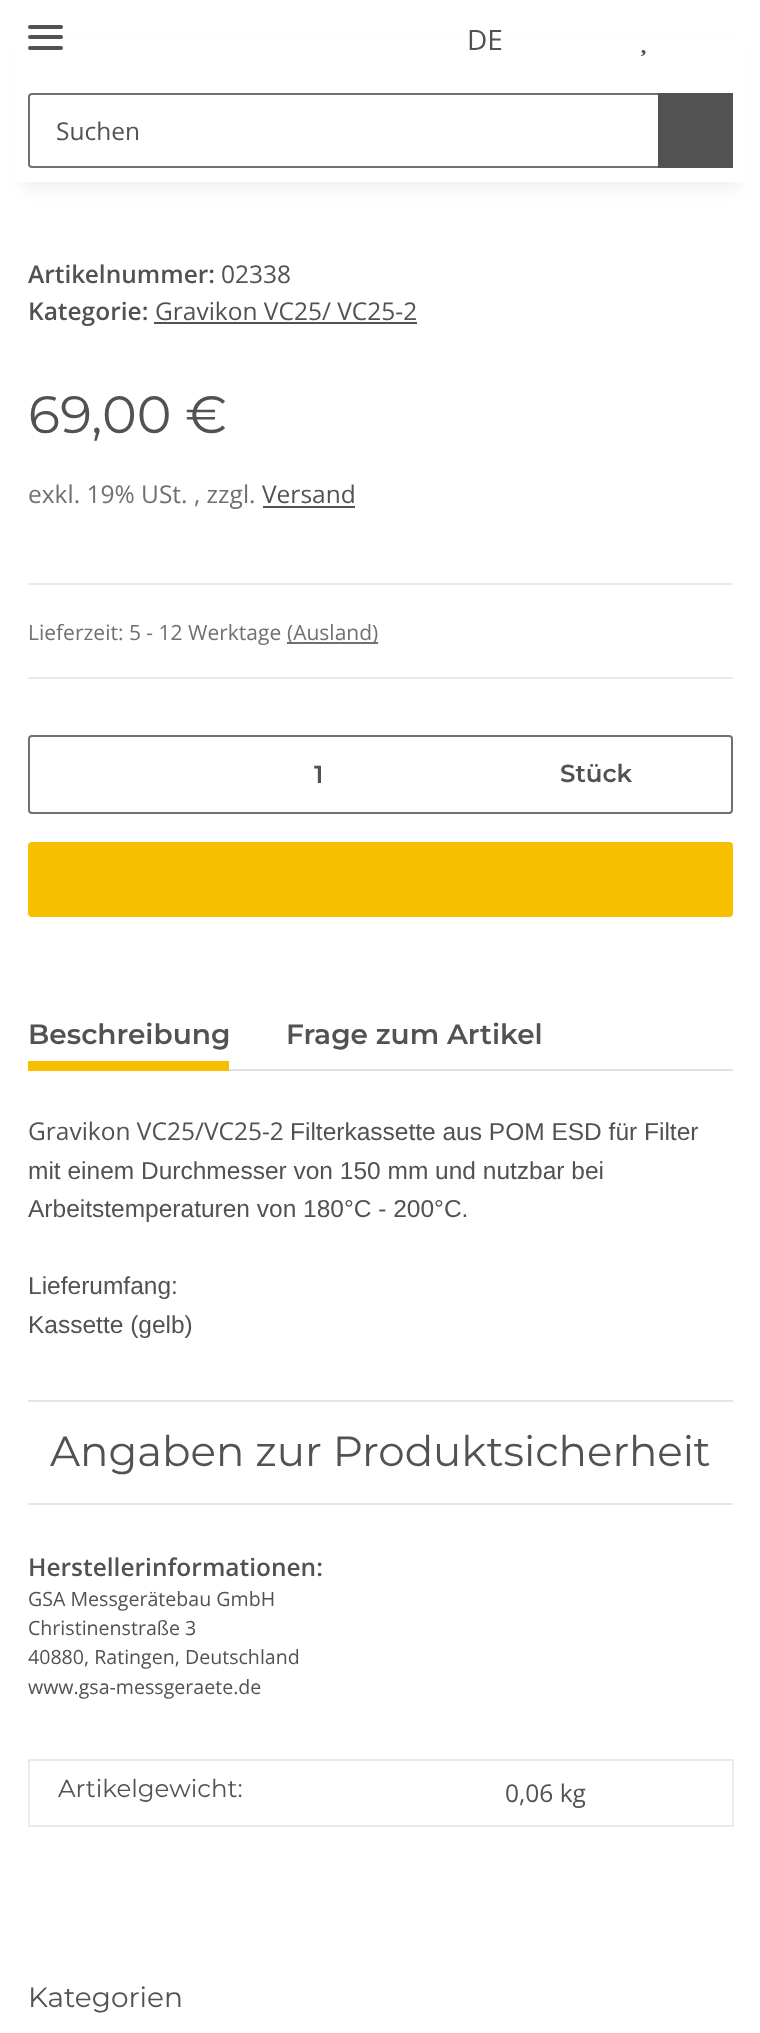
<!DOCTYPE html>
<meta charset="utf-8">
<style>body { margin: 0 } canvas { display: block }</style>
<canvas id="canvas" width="760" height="2033"></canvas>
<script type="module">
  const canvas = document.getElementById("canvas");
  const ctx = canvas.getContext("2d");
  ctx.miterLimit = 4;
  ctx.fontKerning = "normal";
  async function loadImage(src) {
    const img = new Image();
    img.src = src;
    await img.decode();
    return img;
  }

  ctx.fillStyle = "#ffffff";
  ctx.fillRect(0, 0, 760, 2033);
  ctx.fillStyle = "rgba(0, 0, 0, 0.06)";
  ctx.filter = "blur(8px)";
  ctx.beginPath();
  ctx.rect(21, 49, 719, 140);
  ctx.fill();
  ctx.filter = "none";
  ctx.fillStyle = "#ffffff";
  ctx.fillRect(13, 41, 735, 141);
  ctx.fillStyle = "#525252";
  ctx.beginPath();
  ctx.roundRect(28, 35, 35, 4, 2);
  ctx.fill();
  ctx.beginPath();
  ctx.roundRect(28, 25, 35, 4, 2);
  ctx.fill();
  ctx.beginPath();
  ctx.roundRect(28, 46, 35, 4, 2);
  ctx.fill();
  ctx.font = "28px Open Sans";
  ctx.fillText("DE", 467, 50);
  ctx.drawImage(await loadImage("img1.png"), 641, 50, 5, 7);
  ctx.beginPath();
  ctx.roundRect(29, 94, 630, 73, [3, 0, 0, 3]);
  ctx.strokeStyle = "#707070";
  ctx.lineWidth = 2;
  ctx.stroke();
  ctx.font = "24.5px Open Sans";
  ctx.fillText("Suchen", 56, 140);
  ctx.fillRect(658, 93, 75, 75);
  ctx.font = "600 24.5px Open Sans";
  ctx.fillText("Artikelnummer:", 28, 283);
  ctx.font = "24.5px Open Sans";
  ctx.fillText("02338", 221, 283);
  ctx.font = "600 24.5px Open Sans";
  ctx.fillText("Kategorie:", 28, 320);
  ctx.font = "24.5px Open Sans";
  ctx.fillText("Gravikon VC25/ VC25-2", 155, 320);
  ctx.fillRect(154, 322, 263, 2);
  ctx.font = "52.5px Montserrat";
  ctx.fillText("69,00 €", 28, 433);
  ctx.font = "24.5px Open Sans";
  ctx.fillStyle = "#707070";
  ctx.fillText("exkl. 19% USt. , zzgl.", 28, 503);
  ctx.fillStyle = "#525252";
  ctx.fillText("Versand", 262, 503);
  ctx.fillRect(263, 506, 92, 2);
  ctx.fillStyle = "#ebebeb";
  ctx.fillRect(28, 583, 705, 2);
  ctx.fillRect(28, 677, 705, 2);
  ctx.font = "21px Open Sans";
  ctx.fillStyle = "#707070";
  ctx.fillText("Lieferzeit: 5 - 12 Werktage", 28, 640);
  ctx.fillRect(287, 642, 91, 2);
  ctx.fillText("(Ausland)", 287, 640);
  ctx.beginPath();
  ctx.roundRect(29, 736, 703, 77, 3);
  ctx.stroke();
  ctx.font = "600 24.5px Montserrat";
  ctx.fillStyle = "#525252";
  ctx.fillText("1", 314, 783);
  ctx.fillText("Stück", 560, 782);
  ctx.fillStyle = "#f8bf00";
  ctx.beginPath();
  ctx.roundRect(29, 843, 703, 73, 3);
  ctx.fill();
  ctx.strokeStyle = "#f8bf00";
  ctx.stroke();
  ctx.fillStyle = "#dee2e6";
  ctx.fillRect(229, 1069, 504, 2);
  ctx.font = "600 28px Montserrat";
  ctx.fillStyle = "#525252";
  ctx.fillText("Beschreibung", 28, 1044);
  ctx.fillStyle = "#f8bf00";
  ctx.fillRect(28, 1061, 201, 10);
  ctx.fillStyle = "#525252";
  ctx.fillText("Frage zum Artikel", 286, 1044);
  ctx.font = "24.5px Open Sans";
  ctx.fillText("Gravikon VC25/VC25-2", 28, 1140);
  ctx.font = "24.5px Liberation Sans";
  ctx.fillText("Filterkassette aus POM ESD für Filter", 290, 1140);
  ctx.fillText("mit einem Durchmesser von 150 mm und nutzbar bei", 28, 1179);
  ctx.fillText("Arbeitstemperaturen von 180°C - 200°C.", 28, 1217);
  ctx.fillText("Lieferumfang:", 28, 1294);
  ctx.fillText("Kassette (gelb)", 28, 1333);
  ctx.fillStyle = "#e6e6e6";
  ctx.fillRect(28, 1400, 705, 2);
  ctx.fillRect(28, 1503, 705, 2);
  ctx.font = "42px Montserrat";
  ctx.fillStyle = "#525252";
  ctx.fillText("Angaben zur Produktsicherheit", 50, 1466);
  ctx.font = "600 24.5px Open Sans";
  ctx.fillText("Herstellerinformationen:", 28, 1576);
  ctx.font = "19.6px Open Sans";
  ctx.fillText("GSA Messgerätebau GmbH", 28, 1606);
  ctx.fillText("Christinenstraße 3", 28, 1635);
  ctx.fillText("40880, Ratingen, Deutschland", 28, 1664);
  ctx.fillText("www.gsa-messgeraete.de", 28, 1694);
  ctx.fillStyle = "#ebebeb";
  ctx.fillRect(28, 1759, 705, 2);
  ctx.fillRect(732, 1759, 2, 68);
  ctx.fillRect(28, 1825, 705, 2);
  ctx.fillRect(28, 1759, 2, 68);
  ctx.font = "24.5px Montserrat";
  ctx.fillStyle = "#525252";
  ctx.fillText("Artikelgewicht:", 58, 1797);
  ctx.font = "24.5px Open Sans";
  ctx.fillText("0,06 kg", 505, 1802);
  ctx.font = "28px Montserrat";
  ctx.fillText("Kategorien", 28, 2007);
</script>
